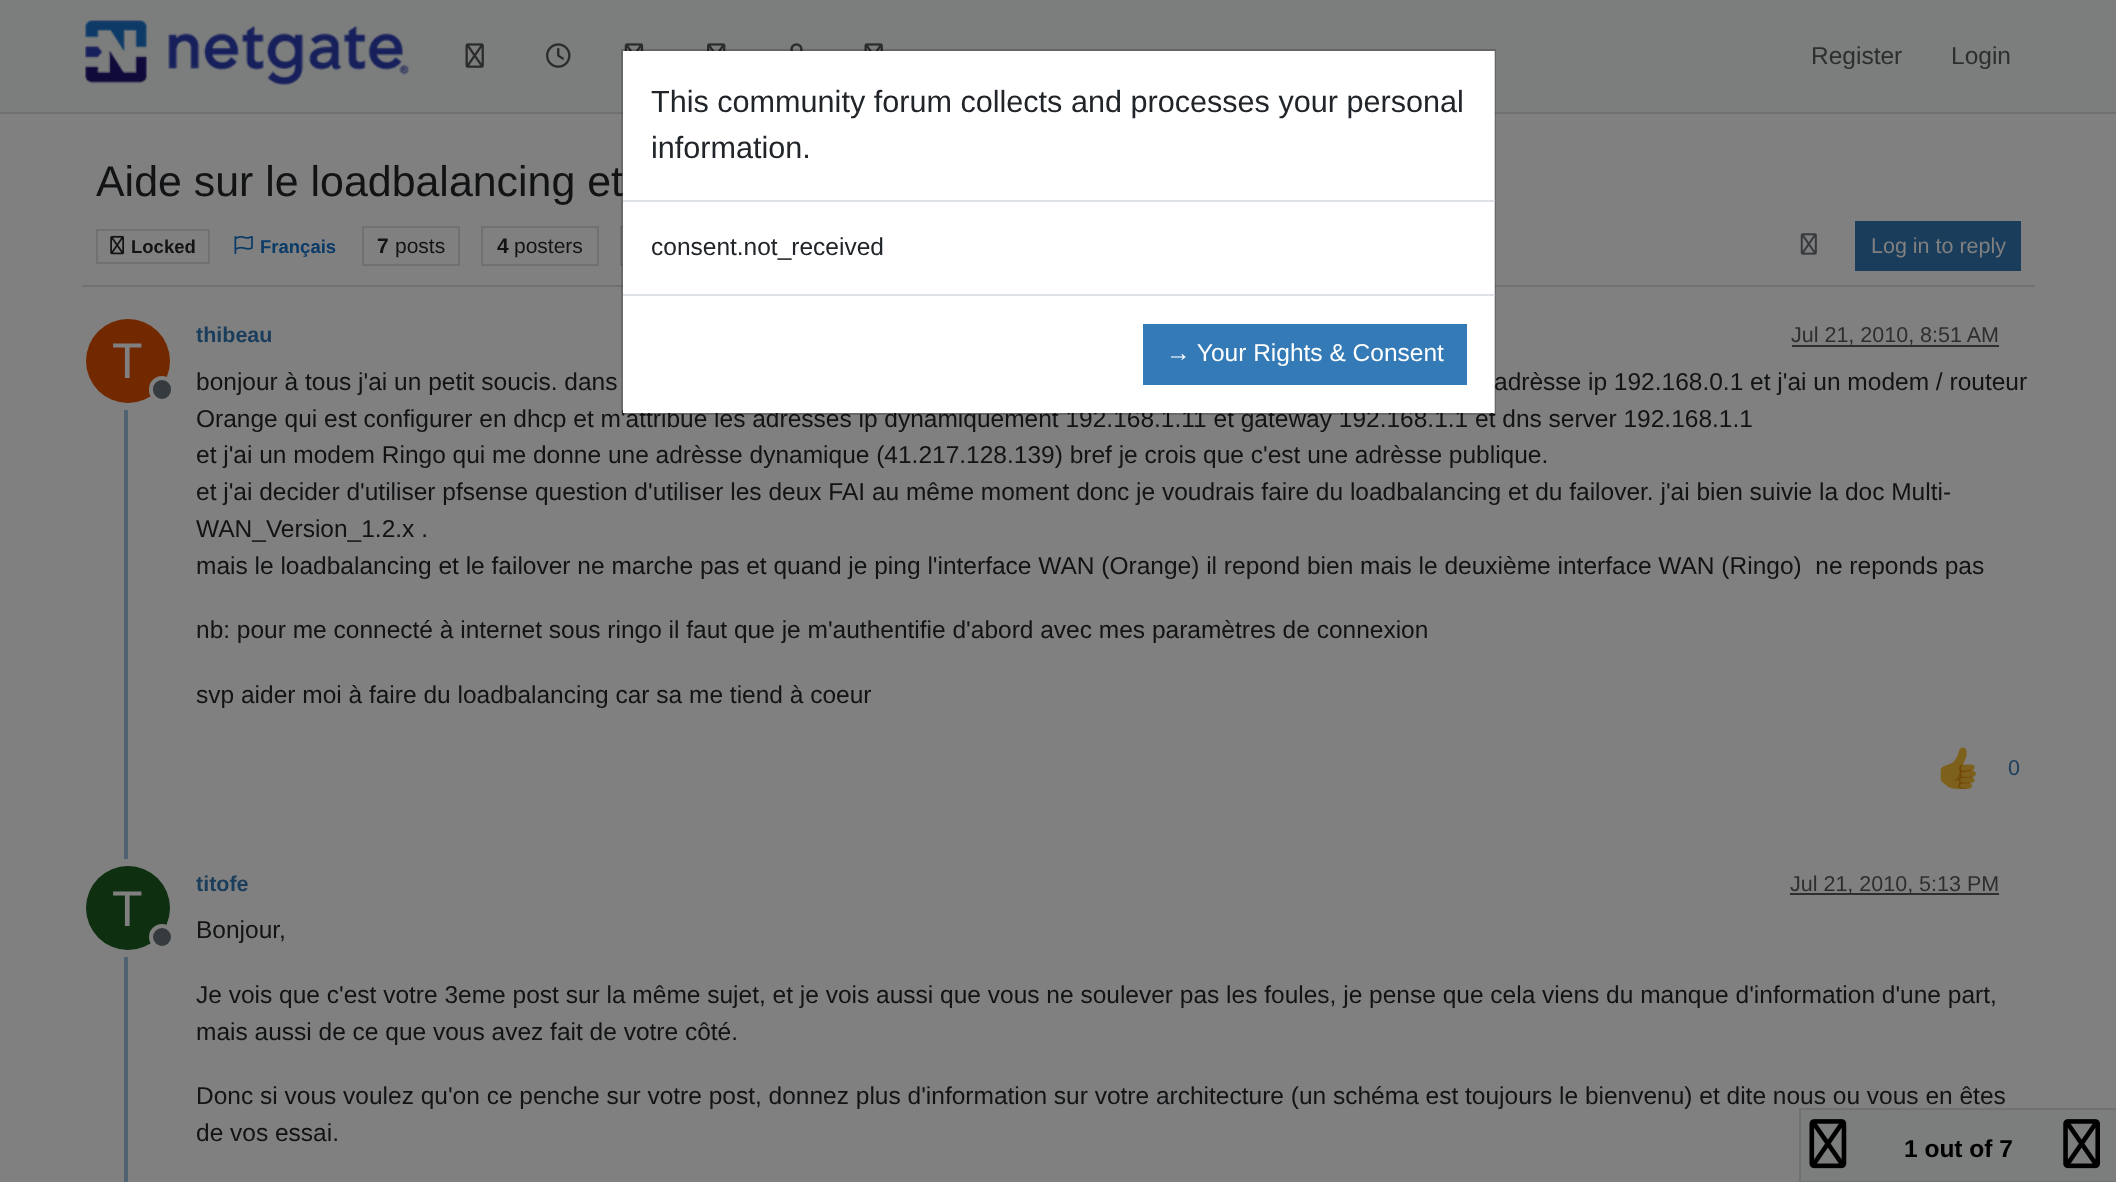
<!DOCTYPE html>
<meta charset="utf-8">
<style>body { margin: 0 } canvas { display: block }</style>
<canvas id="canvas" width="2116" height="1182"></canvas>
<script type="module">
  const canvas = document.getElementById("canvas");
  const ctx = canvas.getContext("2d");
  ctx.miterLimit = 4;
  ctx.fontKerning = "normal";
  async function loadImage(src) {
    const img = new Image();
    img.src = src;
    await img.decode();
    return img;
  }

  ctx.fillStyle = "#808080";
  ctx.fillRect(0, 0, 2116, 1182);
  ctx.fillStyle = "#7c7d7d";
  ctx.fillRect(0, 0, 2116, 112);
  ctx.fillStyle = "#6f7173";
  ctx.fillRect(0, 112, 2116, 2);
  ctx.drawImage(await loadImage("img1.png"), 85, 20, 324, 65);
  ctx.drawImage(await loadImage("img2.png"), 465, 43, 19, 25);
  ctx.drawImage(await loadImage("img3.png"), 546, 43, 25, 25);
  ctx.drawImage(await loadImage("img4.png"), 624, 43, 20, 8);
  ctx.drawImage(await loadImage("img5.png"), 707, 43, 19, 8);
  ctx.drawImage(await loadImage("img6.png"), 790, 43, 13, 8);
  ctx.drawImage(await loadImage("img7.png"), 864, 43, 19, 8);
  ctx.font = "24.5px Liberation Sans";
  ctx.fillStyle = "#2d2e30";
  ctx.fillText("Register", 1811, 64);
  ctx.fillText("Login", 1951, 64);
  ctx.fillStyle = "#6f7173";
  ctx.fillRect(82, 285, 1953, 2);
  ctx.font = "42.9px Liberation Sans";
  ctx.fillStyle = "#111315";
  ctx.fillText("Aide sur le loadbalancing et", 96, 196);
  ctx.strokeStyle = "#6f7173";
  ctx.lineWidth = 2;
  ctx.strokeRect(97, 230, 112, 33);
  ctx.drawImage(await loadImage("img8.png"), 110, 235, 15, 20);
  ctx.font = "bold 18.5px Liberation Sans";
  ctx.fillText("Locked", 131, 253);
  ctx.drawImage(await loadImage("img9.png"), 234, 235, 19, 20);
  ctx.fillStyle = "#0a3b68";
  ctx.fillText("Français", 260, 253);
  ctx.strokeRect(363, 227, 96, 38);
  ctx.font = "bold 21px Liberation Sans";
  ctx.fillStyle = "#111315";
  ctx.fillText("7", 377, 253);
  ctx.font = "21px Liberation Sans";
  ctx.fillText("posts", 395, 253);
  ctx.strokeRect(482, 227, 116, 38);
  ctx.font = "bold 21px Liberation Sans";
  ctx.fillText("4", 497, 253);
  ctx.font = "21px Liberation Sans";
  ctx.fillText("posters", 514, 253);
  ctx.strokeRect(621, 227, 127, 38);
  ctx.drawImage(await loadImage("img10.png"), 1800, 233, 17, 22);
  ctx.fillStyle = "#1a3d5c";
  ctx.fillRect(1855, 221, 166, 50);
  ctx.font = "21.5px Liberation Sans";
  ctx.fillStyle = "#808080";
  ctx.fillText("Log in to reply", 1871, 253);
  ctx.fillStyle = "#506272";
  ctx.fillRect(124, 315, 4, 867);
  ctx.font = "bold 21.5px Liberation Sans";
  ctx.fillStyle = "#1a3d5c";
  ctx.fillText("thibeau", 196, 342);
  ctx.font = "21.5px Liberation Sans";
  ctx.fillStyle = "#2d2e30";
  ctx.fillText("Jul 21, 2010, 8:51 AM", 1791, 342);
  ctx.fillRect(1792, 345, 207, 2);
  ctx.beginPath();
  ctx.arc(128, 361, 45.5, 0, Math.PI * 2);
  ctx.strokeStyle = "#808080";
  ctx.lineWidth = 7;
  ctx.stroke();
  ctx.fillStyle = "#732900";
  ctx.beginPath();
  ctx.arc(128, 361, 42, 0, Math.PI * 2);
  ctx.fill();
  ctx.font = "50px Liberation Sans";
  ctx.fillStyle = "#808080";
  ctx.fillText("T", 112, 378);
  ctx.fillStyle = "#363b3f";
  ctx.beginPath();
  ctx.roundRect(151, 378, 22, 23, 11);
  ctx.fill();
  ctx.lineWidth = 4;
  ctx.stroke();
  ctx.font = "24.5px Liberation Sans";
  ctx.fillStyle = "#111315";
  ctx.fillText("bonjour à tous j'ai un petit soucis. dans", 196, 390);
  ctx.fillText("adrèsse ip 192.168.0.1 et j'ai un modem / routeur", 1494, 390);
  ctx.fillText("Orange qui est configurer en dhcp et m'attribue les adrèsses ip dynamiquement 192.168.1.11 et gateway 192.168.1.1 et dns server 192.168.1.1", 196, 427);
  ctx.fillText("et j'ai un modem Ringo qui me donne une adrèsse dynamique (41.217.128.139) bref je crois que c'est une adrèsse publique.", 196, 463);
  ctx.fillText("et j'ai decider d'utiliser pfsense question d'utiliser les deux FAI au même moment donc je voudrais faire du loadbalancing et du failover. j'ai bien suivie la doc Multi-", 196, 500);
  ctx.fillText("WAN_Version_1.2.x .", 196, 537);
  ctx.fillText("mais le loadbalancing et le failover ne marche pas et quand je ping l'interface WAN (Orange) il repond bien mais le deuxième interface WAN (Ringo)  ne reponds pas", 196, 574);
  ctx.fillText("nb: pour me connecté à internet sous ringo il faut que je m'authentifie d'abord avec mes paramètres de connexion", 196, 638);
  ctx.fillText("svp aider moi à faire du loadbalancing car sa me tiend à coeur", 196, 703);
  ctx.drawImage(await loadImage("img11.png"), 1940, 747, 36, 43);
  ctx.font = "21.5px Liberation Sans";
  ctx.fillStyle = "#1a3d5c";
  ctx.fillText("0", 2008, 775);
  ctx.font = "bold 21.5px Liberation Sans";
  ctx.fillText("titofe", 196, 891);
  ctx.fillStyle = "#2d2e30";
  ctx.fillRect(1790, 893, 209, 2);
  ctx.font = "21.5px Liberation Sans";
  ctx.fillText("Jul 21, 2010, 5:13 PM", 1790, 891);
  ctx.beginPath();
  ctx.arc(128, 908, 45.5, 0, Math.PI * 2);
  ctx.lineWidth = 7;
  ctx.stroke();
  ctx.fillStyle = "#0e2f10";
  ctx.beginPath();
  ctx.arc(128, 908, 42, 0, Math.PI * 2);
  ctx.fill();
  ctx.font = "50px Liberation Sans";
  ctx.fillStyle = "#808080";
  ctx.fillText("T", 112, 926);
  ctx.fillStyle = "#363b3f";
  ctx.beginPath();
  ctx.arc(162, 937, 11, 0, Math.PI * 2);
  ctx.fill();
  ctx.lineWidth = 4;
  ctx.stroke();
  ctx.font = "24.5px Liberation Sans";
  ctx.fillStyle = "#111315";
  ctx.fillText("Bonjour,", 196, 938);
  ctx.fillText("Je vois que c'est votre 3eme post sur la même sujet, et je vois aussi que vous ne soulever pas les foules, je pense que cela viens du manque d'information d'une part,", 196, 1003);
  ctx.fillText("mais aussi de ce que vous avez fait de votre côté.", 196, 1040);
  ctx.fillText("Donc si vous voulez qu'on ce penche sur votre post, donnez plus d'information sur votre architecture (un schéma est toujours le bienvenu) et dite nous ou vous en êtes", 196, 1104);
  ctx.fillText("de vos essai.", 196, 1141);
  ctx.fillStyle = "#7c7d7d";
  ctx.beginPath();
  ctx.rect(1800, 1109, 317, 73);
  ctx.fill();
  ctx.strokeStyle = "#6f7173";
  ctx.lineWidth = 2;
  ctx.stroke();
  ctx.drawImage(await loadImage("img12.png"), 1809, 1119, 38, 50);
  ctx.font = "bold 24.5px Liberation Sans";
  ctx.fillStyle = "#000000";
  ctx.fillText("1 out of 7", 1904, 1157);
  ctx.drawImage(await loadImage("img13.png"), 2063, 1119, 37, 50);
  ctx.fillStyle = "#ffffff";
  ctx.fillRect(623, 51, 872, 362);
  ctx.strokeStyle = "rgba(0, 0, 0, 0.18)";
  ctx.strokeRect(622, 50, 873, 364);
  ctx.fillStyle = "#dee2e6";
  ctx.fillRect(623, 200, 872, 2);
  ctx.font = "30.6px Liberation Sans";
  ctx.fillStyle = "#212529";
  ctx.fillText("This community forum collects and processes your personal", 651, 112);
  ctx.fillText("information.", 651, 158);
  ctx.font = "24.5px Liberation Sans";
  ctx.fillText("consent.not_received", 651, 255);
  ctx.fillStyle = "#dee2e6";
  ctx.fillRect(623, 294, 872, 2);
  ctx.fillStyle = "#337ab7";
  ctx.fillRect(1143, 324, 324, 61);
  ctx.fillStyle = "#ffffff";
  ctx.fillText("→ Your Rights & Consent", 1166, 361);
</script>
